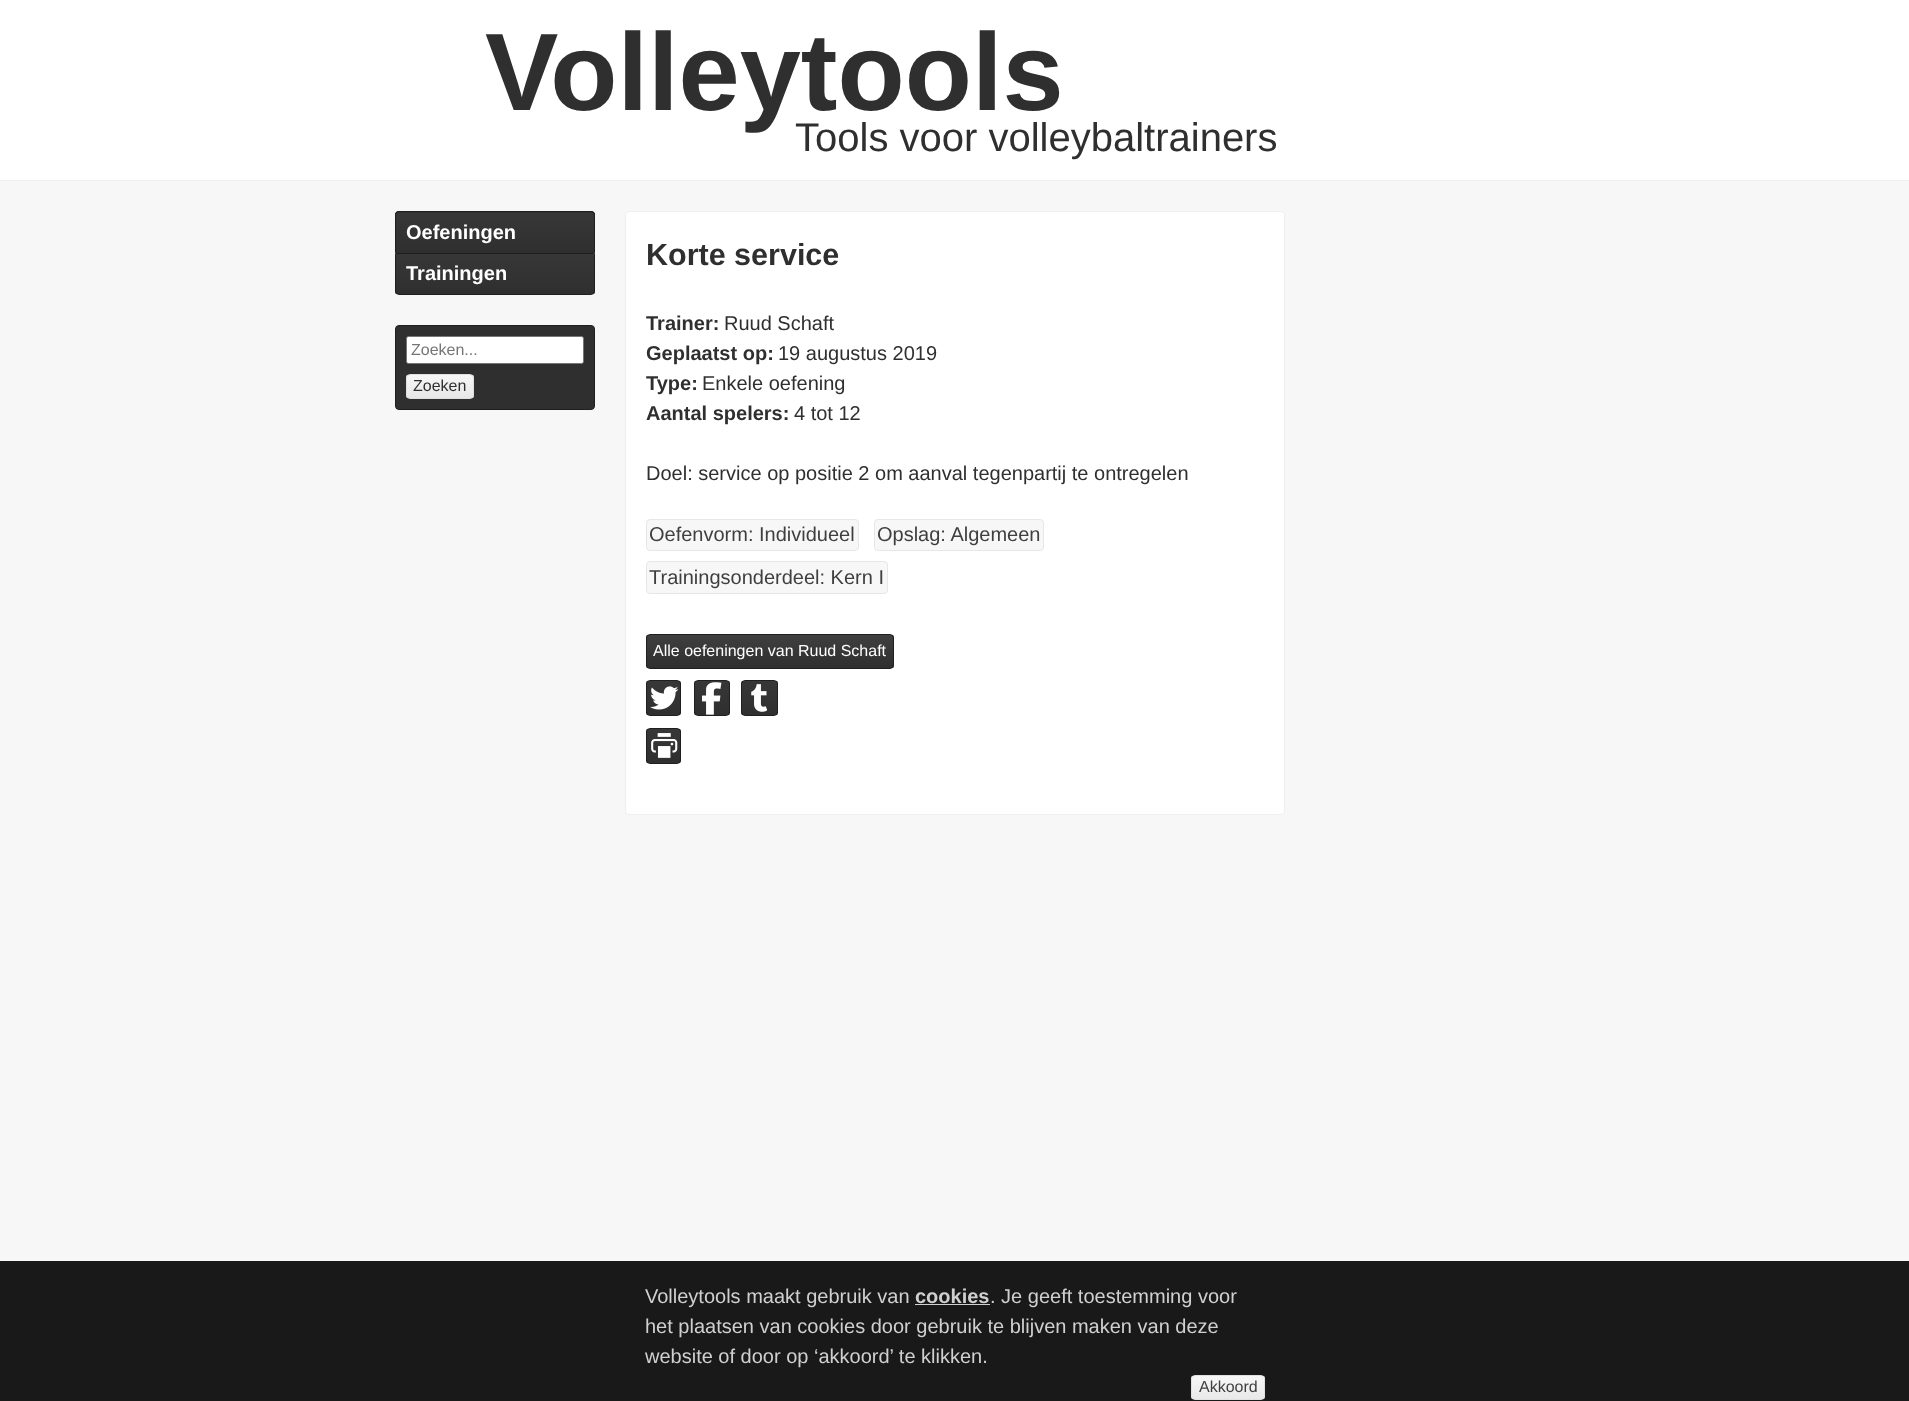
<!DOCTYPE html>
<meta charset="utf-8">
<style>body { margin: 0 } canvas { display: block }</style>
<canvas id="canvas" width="1909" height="1401"></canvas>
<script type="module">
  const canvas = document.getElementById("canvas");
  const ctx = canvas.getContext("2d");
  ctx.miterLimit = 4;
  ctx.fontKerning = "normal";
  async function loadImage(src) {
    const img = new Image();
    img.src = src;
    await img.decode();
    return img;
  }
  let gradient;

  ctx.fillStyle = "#f7f7f7";
  ctx.fillRect(0, 0, 1909, 1401);
  ctx.fillStyle = "#ffffff";
  ctx.fillRect(0, 0, 1909, 180);
  ctx.fillStyle = "#efefef";
  ctx.fillRect(0, 180, 1909, 1);
  ctx.font = "bold 110px Liberation Sans";
  ctx.fillStyle = "#2f2f2f";
  ctx.fillText("Volleytools", 485, 110);
  ctx.font = "40px Liberation Sans";
  ctx.fillText("Tools voor volleybaltrainers", 795, 151);
  ctx.save();
  ctx.beginPath();
  ctx.roundRect(395, 211, 200, 42, [4, 4, 0, 0]);
  ctx.clip();
  gradient = ctx.createLinearGradient(495, 173, 495, 213);
  gradient.addColorStop(0, "#373737");
  gradient.addColorStop(1, "#2f2f2f");
  ctx.fillStyle = gradient;
  ctx.fillRect(395, 211, 200, 2);
  ctx.restore();
  gradient = ctx.createLinearGradient(495, 213, 495, 253);
  gradient.addColorStop(0, "#373737");
  gradient.addColorStop(1, "#2f2f2f");
  ctx.fillStyle = gradient;
  ctx.fillRect(395, 213, 200, 40);
  ctx.fillStyle = "#1f1f1f";
  ctx.beginPath();
  ctx.moveTo(399, 211);
  ctx.lineTo(591, 211);
  ctx.bezierCurveTo(593, 211, 595, 213, 595, 215);
  ctx.lineTo(595, 252);
  ctx.lineTo(395, 252);
  ctx.lineTo(395, 215);
  ctx.bezierCurveTo(395, 213, 397, 211, 399, 211);
  ctx.closePath();
  ctx.moveTo(399, 212);
  ctx.lineTo(591, 212);
  ctx.bezierCurveTo(593, 212, 594, 214, 594, 215);
  ctx.lineTo(594, 252);
  ctx.lineTo(396, 252);
  ctx.lineTo(396, 215);
  ctx.bezierCurveTo(396, 214, 397, 212, 399, 212);
  ctx.closePath();
  ctx.fill("evenodd");
  ctx.font = "bold 20px Liberation Sans";
  ctx.fillStyle = "#ffffff";
  ctx.fillText("Oefeningen", 406, 239);
  ctx.save();
  ctx.beginPath();
  ctx.roundRect(395, 253, 200, 42, [0, 0, 4, 4]);
  ctx.clip();
  gradient = ctx.createLinearGradient(495, 254, 495, 294);
  gradient.addColorStop(0, "#373737");
  gradient.addColorStop(1, "#2f2f2f");
  ctx.fillStyle = gradient;
  ctx.fillRect(395, 254, 200, 40);
  ctx.restore();
  ctx.beginPath();
  ctx.roundRect(395.5, 253.5, 199, 41, [0, 0, 3.5, 3.5]);
  ctx.strokeStyle = "#1f1f1f";
  ctx.stroke();
  ctx.fillText("Trainingen", 406, 280);
  ctx.fillStyle = "#2f2f2f";
  ctx.beginPath();
  ctx.roundRect(395.5, 325.5, 199, 84, 3.5);
  ctx.fill();
  ctx.stroke();
  ctx.fillStyle = "#ffffff";
  ctx.beginPath();
  ctx.roundRect(406.5, 336.5, 177, 27, 2);
  ctx.fill();
  ctx.strokeStyle = "#767676";
  ctx.stroke();
  ctx.font = "16px Liberation Sans";
  ctx.fillStyle = "#757575";
  ctx.fillText("Zoeken...", 411, 355);
  ctx.save();
  ctx.beginPath();
  ctx.roundRect(406, 374, 68, 25, 4);
  ctx.clip();
  gradient = ctx.createLinearGradient(440, 375, 440, 398);
  gradient.addColorStop(0, "#f7f7f7");
  gradient.addColorStop(1, "#e7e7e7");
  ctx.fillStyle = gradient;
  ctx.fillRect(406, 375, 68, 23);
  ctx.restore();
  ctx.beginPath();
  ctx.roundRect(406.5, 374.5, 67, 24, 3.5);
  ctx.strokeStyle = "#dfdfdf";
  ctx.stroke();
  ctx.fillStyle = "#2f2f2f";
  ctx.fillText("Zoeken", 413, 391);
  ctx.fillStyle = "#ffffff";
  ctx.beginPath();
  ctx.roundRect(625.5, 211.5, 659, 603, 3.5);
  ctx.fill();
  ctx.strokeStyle = "#efefef";
  ctx.stroke();
  ctx.font = "bold 30.5px Liberation Sans";
  ctx.fillStyle = "#2f2f2f";
  ctx.fillText("Korte service", 646, 265);
  ctx.font = "bold 20px Liberation Sans";
  ctx.fillText("Trainer:", 646, 330);
  ctx.font = "20px Liberation Sans";
  ctx.fillText("Ruud Schaft", 724, 330);
  ctx.font = "bold 20px Liberation Sans";
  ctx.fillText("Geplaatst op:", 646, 360);
  ctx.font = "20px Liberation Sans";
  ctx.fillText("19 augustus 2019", 778, 360);
  ctx.font = "bold 20px Liberation Sans";
  ctx.fillText("Type:", 646, 390);
  ctx.font = "20px Liberation Sans";
  ctx.fillText("Enkele oefening", 702, 390);
  ctx.font = "bold 20px Liberation Sans";
  ctx.fillText("Aantal spelers:", 646, 420);
  ctx.font = "20px Liberation Sans";
  ctx.fillText("4 tot 12", 794, 420);
  ctx.fillText("Doel: service op positie 2 om aanval tegenpartij te ontregelen", 646, 480);
  ctx.fillStyle = "#f7f7f7";
  ctx.beginPath();
  ctx.roundRect(646.5, 519.5, 212, 31, 3.5);
  ctx.fill();
  ctx.strokeStyle = "#e7e7e7";
  ctx.stroke();
  ctx.fillStyle = "#3f3f3f";
  ctx.fillText("Oefenvorm: Individueel", 649, 541);
  ctx.fillStyle = "#f7f7f7";
  ctx.beginPath();
  ctx.roundRect(874.5, 519.5, 169, 31, 3.5);
  ctx.fill();
  ctx.stroke();
  ctx.fillStyle = "#3f3f3f";
  ctx.fillText("Opslag: Algemeen", 877, 541);
  ctx.fillStyle = "#f7f7f7";
  ctx.beginPath();
  ctx.roundRect(646.5, 561.5, 241, 32, 3.5);
  ctx.fill();
  ctx.stroke();
  ctx.fillStyle = "#3f3f3f";
  ctx.fillText("Trainingsonderdeel: Kern I", 649, 584);
  ctx.save();
  ctx.beginPath();
  ctx.roundRect(646, 634, 248, 35, 4);
  ctx.clip();
  gradient = ctx.createLinearGradient(770, 635, 770, 668);
  gradient.addColorStop(0, "#3f3f3f");
  gradient.addColorStop(1, "#2f2f2f");
  ctx.fillStyle = gradient;
  ctx.fillRect(646, 635, 248, 33);
  ctx.restore();
  ctx.beginPath();
  ctx.roundRect(646.5, 634.5, 247, 34, 3.5);
  ctx.strokeStyle = "#1f1f1f";
  ctx.stroke();
  ctx.font = "16px Liberation Sans";
  ctx.fillStyle = "#ffffff";
  ctx.fillText("Alle oefeningen van Ruud Schaft", 653, 656);
  ctx.save();
  ctx.beginPath();
  ctx.roundRect(646, 680, 35, 36, 4);
  ctx.clip();
  gradient = ctx.createLinearGradient(664, 681, 664, 715);
  gradient.addColorStop(0, "#373737");
  gradient.addColorStop(1, "#2f2f2f");
  ctx.fillStyle = gradient;
  ctx.fillRect(646, 681, 35, 34);
  ctx.restore();
  ctx.beginPath();
  ctx.roundRect(646.5, 680.5, 34, 35, 3.5);
  ctx.stroke();
  ctx.drawImage(await loadImage("img1.png"), 650, 686, 29, 24);
  ctx.save();
  ctx.beginPath();
  ctx.roundRect(694, 680, 36, 36, 4);
  ctx.clip();
  gradient = ctx.createLinearGradient(712, 681, 712, 715);
  gradient.addColorStop(0, "#373737");
  gradient.addColorStop(1, "#2f2f2f");
  ctx.fillStyle = gradient;
  ctx.fillRect(694, 681, 36, 34);
  ctx.restore();
  ctx.beginPath();
  ctx.roundRect(694.5, 680.5, 35, 35, 3.5);
  ctx.stroke();
  ctx.drawImage(await loadImage("img2.png"), 702, 682, 20, 33);
  ctx.save();
  ctx.beginPath();
  ctx.roundRect(741, 680, 37, 36, 4);
  ctx.clip();
  gradient = ctx.createLinearGradient(759, 681, 759, 715);
  gradient.addColorStop(0, "#373737");
  gradient.addColorStop(1, "#2f2f2f");
  ctx.fillStyle = gradient;
  ctx.fillRect(741, 681, 37, 34);
  ctx.restore();
  ctx.beginPath();
  ctx.roundRect(741.5, 680.5, 36, 35, 3.5);
  ctx.stroke();
  ctx.drawImage(await loadImage("img3.png"), 751, 684, 17, 28);
  ctx.save();
  ctx.beginPath();
  ctx.roundRect(646, 728, 35, 36, 4);
  ctx.clip();
  gradient = ctx.createLinearGradient(664, 729, 664, 763);
  gradient.addColorStop(0, "#373737");
  gradient.addColorStop(1, "#2f2f2f");
  ctx.fillStyle = gradient;
  ctx.fillRect(646, 729, 35, 34);
  ctx.restore();
  ctx.beginPath();
  ctx.roundRect(646.5, 728.5, 34, 35, 3.5);
  ctx.stroke();
  ctx.drawImage(await loadImage("img4.png"), 651, 733, 27, 25);
  ctx.fillStyle = "#191919";
  ctx.fillRect(0, 1261, 1909, 140);
  ctx.font = "20px Liberation Sans";
  ctx.fillStyle = "#d0d0d0";
  ctx.fillText("Volleytools maakt gebruik van", 645, 1303);
  ctx.font = "bold 20px Liberation Sans";
  ctx.fillText("cookies", 915, 1303);
  ctx.fillRect(915, 1304, 75, 1);
  ctx.font = "20px Liberation Sans";
  ctx.fillText(". Je geeft toestemming voor", 990, 1303);
  ctx.fillText("het plaatsen van cookies door gebruik te blijven maken van deze", 645, 1333);
  ctx.fillText("website of door op ‘akkoord’ te klikken.", 645, 1363);
  ctx.save();
  ctx.beginPath();
  ctx.roundRect(1191, 1375, 74, 25, 4);
  ctx.clip();
  gradient = ctx.createLinearGradient(1228, 1376, 1228, 1399);
  gradient.addColorStop(0, "#f7f7f7");
  gradient.addColorStop(1, "#e9e9e9");
  ctx.fillStyle = gradient;
  ctx.fillRect(1191, 1376, 74, 23);
  ctx.restore();
  ctx.beginPath();
  ctx.roundRect(1191.5, 1375.5, 73, 24, 3.5);
  ctx.strokeStyle = "#e1e1e1";
  ctx.stroke();
  ctx.font = "16px Liberation Sans";
  ctx.fillStyle = "#3f3f3f";
  ctx.fillText("Akkoord", 1199, 1392);
</script>
